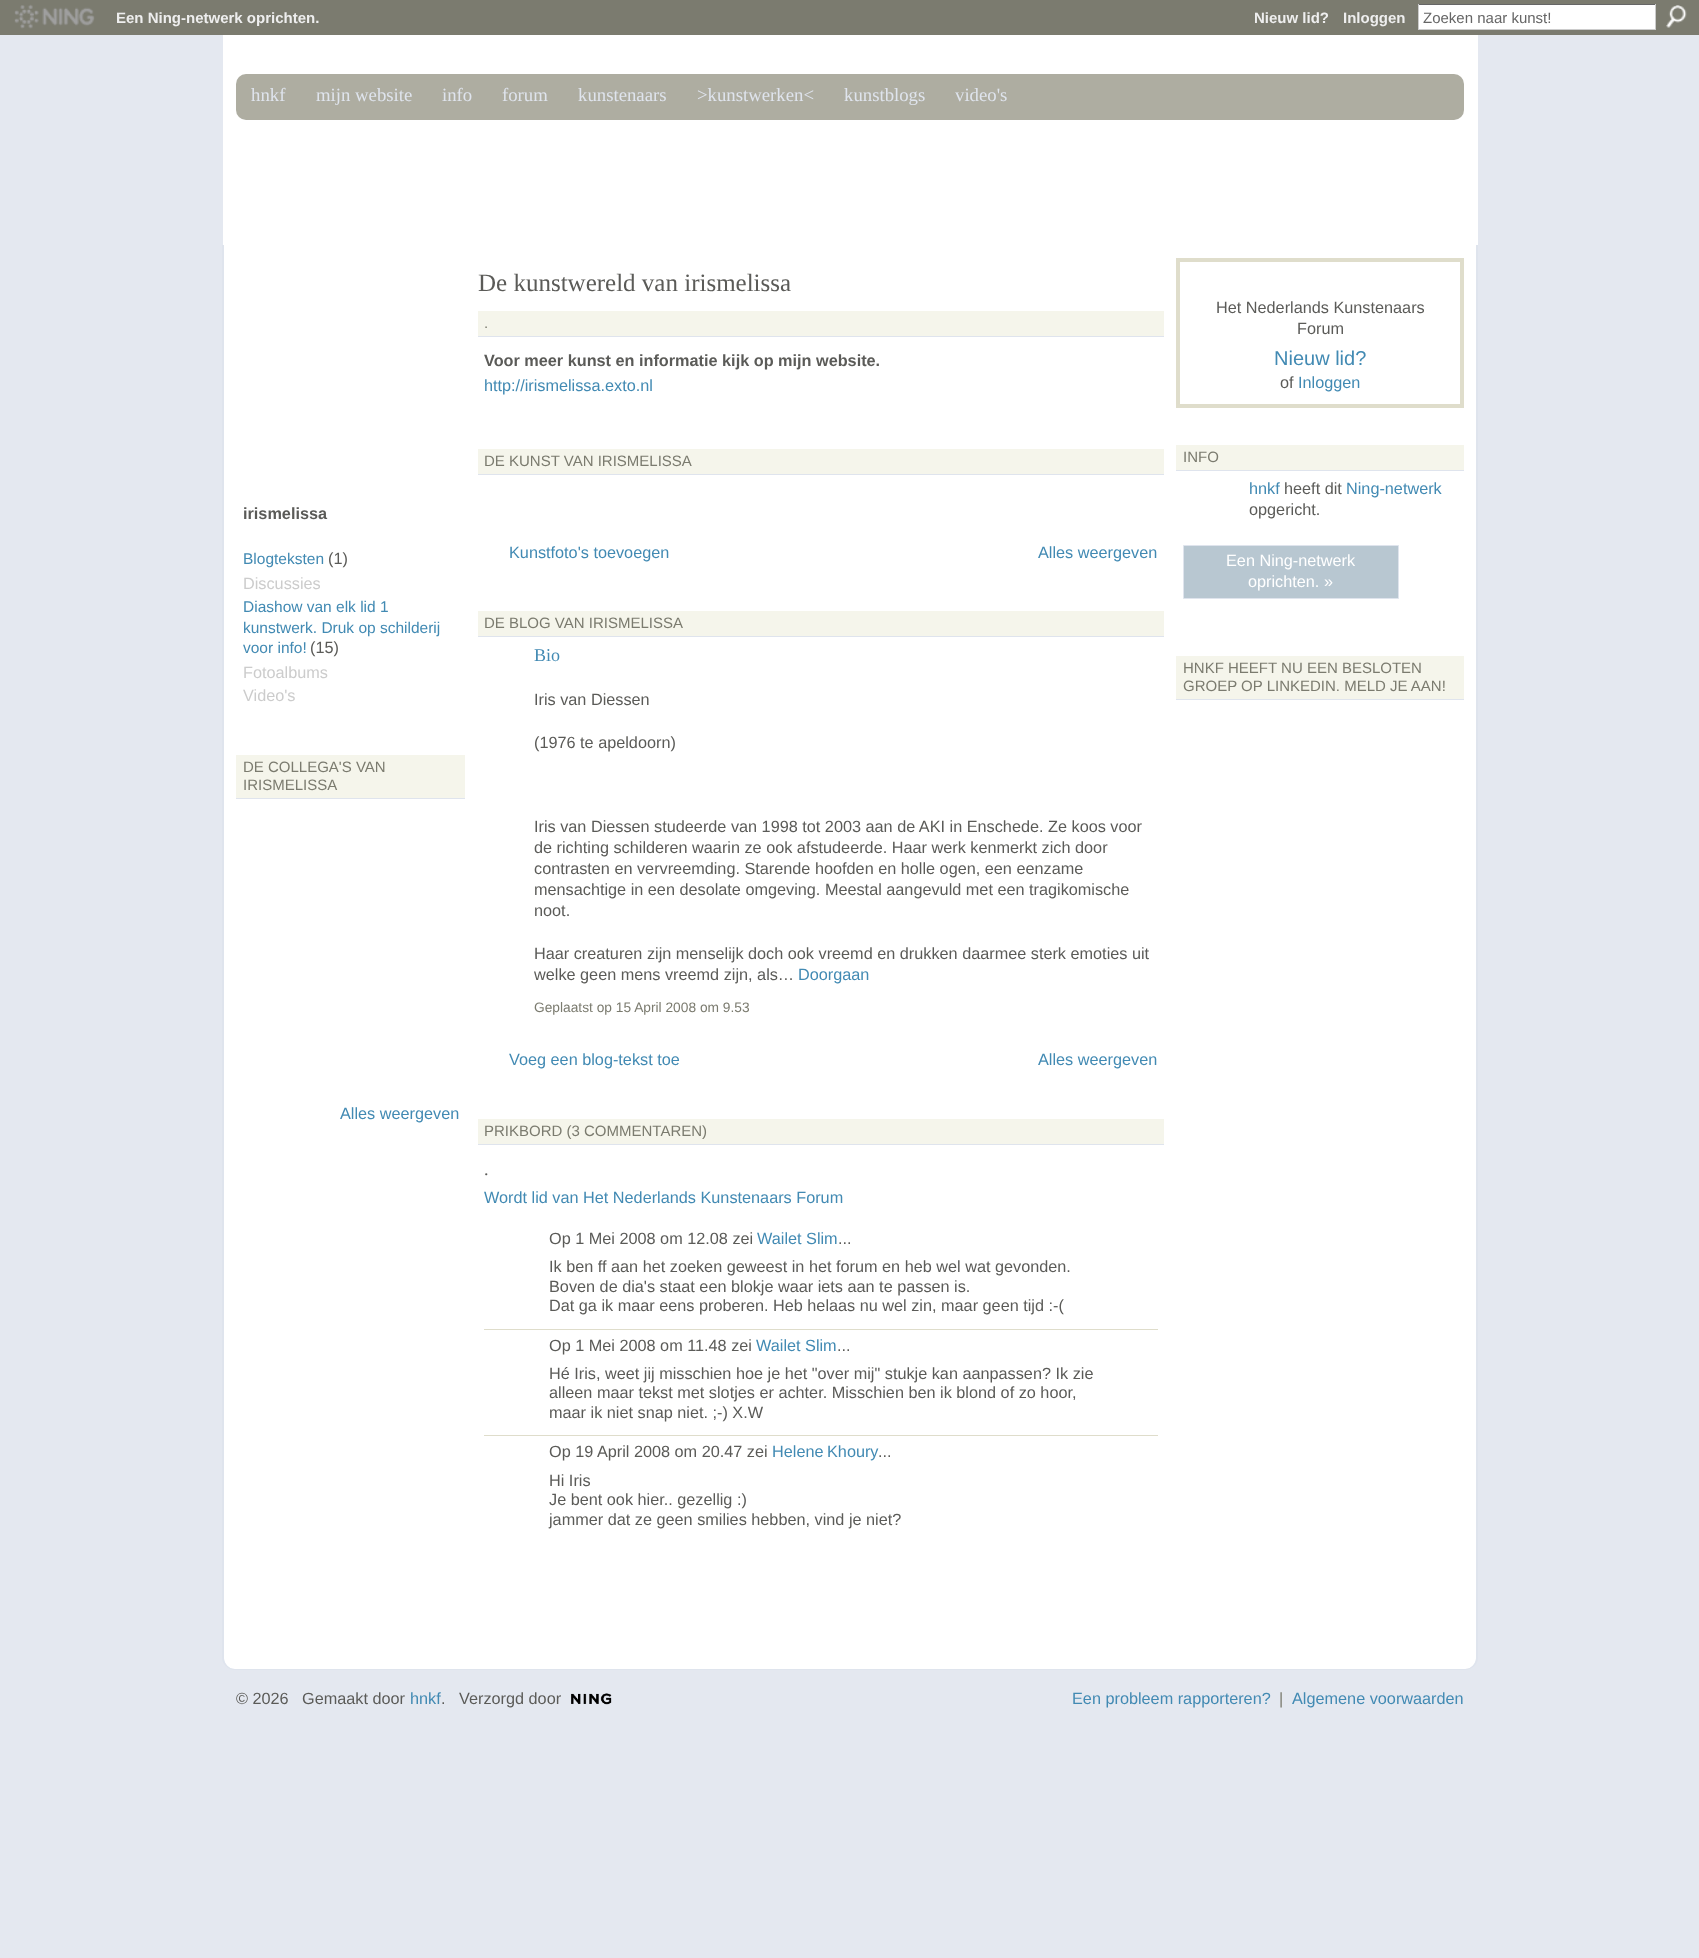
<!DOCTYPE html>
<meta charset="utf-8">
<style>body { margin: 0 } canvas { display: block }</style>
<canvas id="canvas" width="1699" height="1958"></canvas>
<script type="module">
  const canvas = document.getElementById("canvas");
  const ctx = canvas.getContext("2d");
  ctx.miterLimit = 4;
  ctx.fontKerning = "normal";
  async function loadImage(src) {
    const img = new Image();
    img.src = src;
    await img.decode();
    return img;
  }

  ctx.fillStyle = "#e4e8f0";
  ctx.fillRect(0, 0, 1699, 1958);
  ctx.fillStyle = "#7b7b6f";
  ctx.fillRect(0, 0, 1699, 35);
  ctx.drawImage(await loadImage("img1.png"), 14, 4, 81, 25);
  ctx.font = "bold 15px Liberation Sans";
  ctx.fillStyle = "#eeeeee";
  ctx.fillText("Een Ning-netwerk oprichten.", 116, 23);
  ctx.fillText("Nieuw lid?", 1254, 23);
  ctx.fillText("Inloggen", 1343, 23);
  ctx.fillStyle = "#ffffff";
  ctx.fillRect(1419, 5, 236, 24);
  ctx.fillStyle = "#666666";
  ctx.fillRect(1418, 4, 238, 1);
  ctx.fillStyle = "#cccccc";
  ctx.fillRect(1655, 4, 1, 26);
  ctx.fillRect(1418, 29, 238, 1);
  ctx.fillRect(1418, 4, 1, 26);
  ctx.font = "15px Liberation Sans";
  ctx.fillStyle = "#666666";
  ctx.fillText("Zoeken naar kunst!", 1423, 23);
  ctx.drawImage(await loadImage("img2.png"), 1666, 5, 21, 23);
  ctx.fillStyle = "#ffffff";
  ctx.fillRect(223, 35, 1255, 210);
  ctx.fillStyle = "#aeada1";
  ctx.beginPath();
  ctx.roundRect(236, 74, 1228, 46, 10);
  ctx.fill();
  ctx.font = "18.75px Liberation Serif";
  ctx.fillStyle = "#dfe4ed";
  ctx.fillText("hnkf", 251, 101);
  ctx.fillText("mijn website", 316, 101);
  ctx.fillText("info", 442, 101);
  ctx.fillText("forum", 502, 101);
  ctx.fillText("kunstenaars", 578, 101);
  ctx.fillText(">kunstwerken<", 697, 101);
  ctx.fillText("kunstblogs", 844, 101);
  ctx.fillText("video's", 955, 101);
  ctx.fillStyle = "#ffffff";
  ctx.beginPath();
  ctx.roundRect(224, 245, 1252, 1424, [0, 0, 11, 11]);
  ctx.fill();
  ctx.fillStyle = "#dfe4ed";
  ctx.beginPath();
  ctx.moveTo(222, 245);
  ctx.lineTo(1478, 245);
  ctx.lineTo(1478, 1658);
  ctx.bezierCurveTo(1478, 1664, 1472, 1670, 1465, 1670);
  ctx.lineTo(235, 1670);
  ctx.bezierCurveTo(228, 1670, 222, 1664, 222, 1658);
  ctx.closePath();
  ctx.moveTo(224, 245);
  ctx.lineTo(1476, 245);
  ctx.lineTo(1476, 1658);
  ctx.bezierCurveTo(1476, 1664, 1471, 1669, 1465, 1669);
  ctx.lineTo(235, 1669);
  ctx.bezierCurveTo(229, 1669, 224, 1664, 224, 1658);
  ctx.closePath();
  ctx.fill("evenodd");
  ctx.font = "bold 16.25px Liberation Sans";
  ctx.fillStyle = "#5b5b58";
  ctx.fillText("irismelissa", 243, 519);
  ctx.font = "15.5px Liberation Sans";
  ctx.fillStyle = "#428ab3";
  ctx.fillText("Blogteksten", 243, 564);
  ctx.font = "16.25px Liberation Sans";
  ctx.fillStyle = "#5b5b58";
  ctx.fillText("(1)", 328, 564);
  ctx.fillStyle = "#cccccc";
  ctx.fillText("Discussies", 243, 589);
  ctx.font = "15.5px Liberation Sans";
  ctx.fillStyle = "#428ab3";
  ctx.fillText("Diashow van elk lid 1", 243, 612);
  ctx.fillText("kunstwerk. Druk op schilderij", 243, 633);
  ctx.fillText("voor info!", 243, 653);
  ctx.font = "16.25px Liberation Sans";
  ctx.fillStyle = "#5b5b58";
  ctx.fillText("(15)", 310, 653);
  ctx.fillStyle = "#cccccc";
  ctx.fillText("Fotoalbums", 243, 678);
  ctx.fillText("Video's", 243, 701);
  ctx.fillStyle = "#f5f5eb";
  ctx.fillRect(236, 755, 229, 43);
  ctx.fillStyle = "#dfe4ed";
  ctx.fillRect(236, 798, 229, 1);
  ctx.font = "15px Liberation Sans";
  ctx.fillStyle = "#7b7b6f";
  ctx.fillText("DE COLLEGA'S VAN", 243, 772);
  ctx.fillText("IRISMELISSA", 243, 790);
  ctx.font = "16.25px Liberation Sans";
  ctx.fillStyle = "#428ab3";
  ctx.fillText("Alles weergeven", 340, 1119);
  ctx.font = "25px Liberation Serif";
  ctx.fillStyle = "#5b5b58";
  ctx.fillText("De kunstwereld van irismelissa", 478, 291);
  ctx.fillStyle = "#f5f5eb";
  ctx.fillRect(478, 311, 686, 25);
  ctx.fillStyle = "#dfe4ed";
  ctx.fillRect(478, 336, 686, 1);
  ctx.font = "15px Liberation Sans";
  ctx.fillStyle = "#7b7b6f";
  ctx.fillText(".", 484, 328);
  ctx.font = "bold 16.25px Liberation Sans";
  ctx.fillStyle = "#5b5b58";
  ctx.fillText("Voor meer kunst en informatie kijk op mijn website.", 484, 366);
  ctx.font = "16.25px Liberation Sans";
  ctx.fillStyle = "#428ab3";
  ctx.fillText("http://irismelissa.exto.nl", 484, 391);
  ctx.fillStyle = "#f5f5eb";
  ctx.fillRect(478, 449, 686, 25);
  ctx.fillStyle = "#dfe4ed";
  ctx.fillRect(478, 474, 686, 1);
  ctx.font = "15px Liberation Sans";
  ctx.fillStyle = "#7b7b6f";
  ctx.fillText("DE KUNST VAN IRISMELISSA", 484, 466);
  ctx.font = "16.25px Liberation Sans";
  ctx.fillStyle = "#428ab3";
  ctx.fillText("Kunstfoto's toevoegen", 509, 558);
  ctx.fillText("Alles weergeven", 1038, 558);
  ctx.fillStyle = "#f5f5eb";
  ctx.fillRect(478, 611, 686, 25);
  ctx.fillStyle = "#dfe4ed";
  ctx.fillRect(478, 636, 686, 1);
  ctx.font = "15px Liberation Sans";
  ctx.fillStyle = "#7b7b6f";
  ctx.fillText("DE BLOG VAN IRISMELISSA", 484, 628);
  ctx.font = "18px Liberation Serif";
  ctx.fillStyle = "#428ab3";
  ctx.fillText("Bio", 534, 661);
  ctx.font = "16.25px Liberation Sans";
  ctx.fillStyle = "#5b5b58";
  ctx.fillText("Iris van Diessen", 534, 705);
  ctx.fillText("(1976 te apeldoorn)", 534, 748);
  ctx.fillText("Iris van Diessen studeerde van 1998 tot 2003 aan de AKI in Enschede. Ze koos voor", 534, 832);
  ctx.fillText("de richting schilderen waarin ze ook afstudeerde. Haar werk kenmerkt zich door", 534, 853);
  ctx.fillText("contrasten en vervreemding. Starende hoofden en holle ogen, een eenzame", 534, 874);
  ctx.fillText("mensachtige in een desolate omgeving. Meestal aangevuld met een tragikomische", 534, 895);
  ctx.fillText("noot.", 534, 916);
  ctx.fillText("Haar creaturen zijn menselijk doch ook vreemd en drukken daarmee sterk emoties uit", 534, 959);
  ctx.fillText("welke geen mens vreemd zijn, als…", 534, 980);
  ctx.fillStyle = "#428ab3";
  ctx.fillText("Doorgaan", 798, 980);
  ctx.font = "13.75px Liberation Sans";
  ctx.fillStyle = "#7b7b6f";
  ctx.fillText("Geplaatst op 15 April 2008 om 9.53", 534, 1012);
  ctx.font = "16.25px Liberation Sans";
  ctx.fillStyle = "#428ab3";
  ctx.fillText("Voeg een blog-tekst toe", 509, 1065);
  ctx.fillText("Alles weergeven", 1038, 1065);
  ctx.fillStyle = "#f5f5eb";
  ctx.fillRect(478, 1119, 686, 25);
  ctx.fillStyle = "#dfe4ed";
  ctx.fillRect(478, 1144, 686, 1);
  ctx.font = "15px Liberation Sans";
  ctx.fillStyle = "#7b7b6f";
  ctx.fillText("PRIKBORD (3 COMMENTAREN)", 484, 1136);
  ctx.font = "18px Liberation Serif";
  ctx.fillStyle = "#5b5b58";
  ctx.fillText(".", 484, 1175);
  ctx.font = "16.25px Liberation Sans";
  ctx.fillStyle = "#428ab3";
  ctx.fillText("Wordt lid van Het Nederlands Kunstenaars Forum", 484, 1203);
  ctx.fillStyle = "#dfddcb";
  ctx.fillRect(484, 1329, 674, 1);
  ctx.fillStyle = "#5b5b58";
  ctx.fillText("Op 1 Mei 2008 om 12.08 zei", 549, 1244);
  ctx.fillStyle = "#428ab3";
  ctx.fillText("Wailet Slim", 757, 1244);
  ctx.fillStyle = "#5b5b58";
  ctx.fillText("...", 838, 1244);
  ctx.fillText("Ik ben ff aan het zoeken geweest in het forum en heb wel wat gevonden.", 549, 1272);
  ctx.fillText("Boven de dia's staat een blokje waar iets aan te passen is.", 549, 1292);
  ctx.fillText("Dat ga ik maar eens proberen. Heb helaas nu wel zin, maar geen tijd :-(", 549, 1311);
  ctx.fillStyle = "#dfddcb";
  ctx.fillRect(484, 1435, 674, 1);
  ctx.fillStyle = "#5b5b58";
  ctx.fillText("Op 1 Mei 2008 om 11.48 zei", 549, 1351);
  ctx.fillStyle = "#428ab3";
  ctx.fillText("Wailet Slim", 756, 1351);
  ctx.fillStyle = "#5b5b58";
  ctx.fillText("...", 837, 1351);
  ctx.fillText("Hé Iris, weet jij misschien hoe je het \"over mij\" stukje kan aanpassen? Ik zie", 549, 1379);
  ctx.fillText("alleen maar tekst met slotjes er achter. Misschien ben ik blond of zo hoor,", 549, 1398);
  ctx.fillText("maar ik niet snap niet. ;-) X.W", 549, 1418);
  ctx.fillText("Op 19 April 2008 om 20.47 zei", 549, 1457);
  ctx.wordSpacing = "-1px";
  ctx.fillStyle = "#428ab3";
  ctx.fillText("Helene Khoury", 772, 1457);
  ctx.wordSpacing = "0px";
  ctx.fillStyle = "#5b5b58";
  ctx.fillText("...", 878, 1457);
  ctx.fillText("Hi Iris", 549, 1486);
  ctx.fillText("Je bent ook hier.. gezellig :)", 549, 1505);
  ctx.fillText("jammer dat ze geen smilies hebben, vind je niet?", 549, 1525);
  ctx.strokeStyle = "#dfddcb";
  ctx.lineWidth = 4;
  ctx.strokeRect(1178, 260, 284, 146);
  ctx.fillText("Het Nederlands Kunstenaars", 1216, 313);
  ctx.fillText("Forum", 1297, 334);
  ctx.font = "20px Liberation Sans";
  ctx.fillStyle = "#428ab3";
  ctx.fillText("Nieuw lid?", 1274, 365);
  ctx.font = "16.25px Liberation Sans";
  ctx.fillStyle = "#5b5b58";
  ctx.fillText("of", 1280, 388);
  ctx.fillStyle = "#428ab3";
  ctx.fillText("Inloggen", 1298, 388);
  ctx.fillStyle = "#f5f5eb";
  ctx.fillRect(1176, 445, 288, 25);
  ctx.fillStyle = "#dfe4ed";
  ctx.fillRect(1176, 470, 288, 1);
  ctx.font = "15px Liberation Sans";
  ctx.fillStyle = "#7b7b6f";
  ctx.fillText("INFO", 1183, 462);
  ctx.font = "16.25px Liberation Sans";
  ctx.fillStyle = "#428ab3";
  ctx.fillText("hnkf", 1249, 494);
  ctx.fillStyle = "#5b5b58";
  ctx.fillText("heeft dit", 1284, 494);
  ctx.fillStyle = "#428ab3";
  ctx.fillText("Ning-netwerk", 1346, 494);
  ctx.fillStyle = "#5b5b58";
  ctx.fillText("opgericht.", 1249, 515);
  ctx.fillStyle = "#b8c7d1";
  ctx.beginPath();
  ctx.rect(1183.5, 545.5, 215, 53);
  ctx.fill();
  ctx.strokeStyle = "#dfe4ed";
  ctx.lineWidth = 1;
  ctx.stroke();
  ctx.fillStyle = "#ffffff";
  ctx.fillText("Een Ning-netwerk", 1226, 566);
  ctx.fillText("oprichten. »", 1248, 587);
  ctx.fillStyle = "#f5f5eb";
  ctx.fillRect(1176, 656, 288, 43);
  ctx.fillStyle = "#dfe4ed";
  ctx.fillRect(1176, 699, 288, 1);
  ctx.font = "15px Liberation Sans";
  ctx.fillStyle = "#7b7b6f";
  ctx.fillText("HNKF HEEFT NU EEN BESLOTEN", 1183, 673);
  ctx.fillText("GROEP OP LINKEDIN. MELD JE AAN!", 1183, 691);
  ctx.font = "16.25px Liberation Sans";
  ctx.fillStyle = "#5b5b58";
  ctx.fillText("© 2026", 236, 1704);
  ctx.fillText("Gemaakt door", 302, 1704);
  ctx.fillStyle = "#428ab3";
  ctx.fillText("hnkf", 410, 1704);
  ctx.fillStyle = "#5b5b58";
  ctx.fillText(".", 441, 1704);
  ctx.fillText("Verzorgd door", 459, 1704);
  ctx.drawImage(await loadImage("img3.png"), 571, 1693, 41, 12);
  ctx.fillStyle = "#428ab3";
  ctx.fillText("Een probleem rapporteren?", 1072, 1704);
  ctx.fillStyle = "#7b7b6f";
  ctx.fillText("|", 1279, 1704);
  ctx.fillStyle = "#428ab3";
  ctx.fillText("Algemene voorwaarden", 1292, 1704);
</script>
